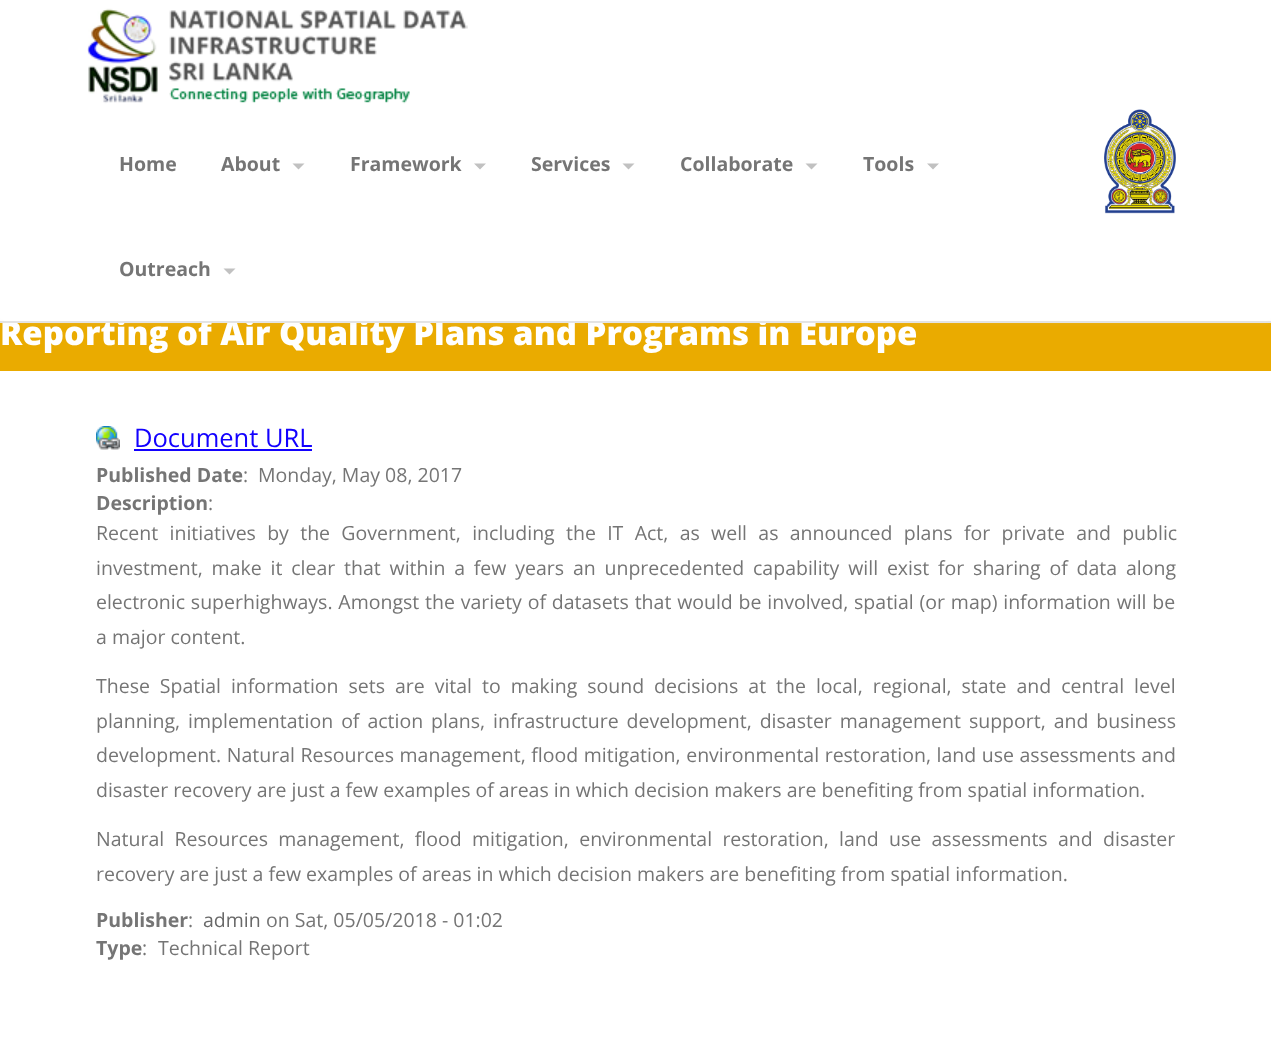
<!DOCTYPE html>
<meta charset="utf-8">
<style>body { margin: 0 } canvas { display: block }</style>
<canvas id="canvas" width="1271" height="1039"></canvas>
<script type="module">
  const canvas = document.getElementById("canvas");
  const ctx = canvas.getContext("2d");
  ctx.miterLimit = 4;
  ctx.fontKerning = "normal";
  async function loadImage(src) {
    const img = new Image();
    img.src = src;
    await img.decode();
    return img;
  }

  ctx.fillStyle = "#ffffff";
  ctx.fillRect(0, 0, 1271, 1039);
  ctx.fillStyle = "#eaab00";
  ctx.fillRect(0, 323, 1271, 48);
  ctx.font = "800 33px Open Sans";
  ctx.fillStyle = "#ffffff";
  ctx.fillText("Reporting of Air Quality Plans and Programs in Europe", 0, 345);
  ctx.fillStyle = "#e4e4e4";
  ctx.fillRect(0, 321, 1271, 2);
  ctx.save();
  ctx.beginPath();
  ctx.moveTo(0, 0);
  ctx.lineTo(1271, 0);
  ctx.lineTo(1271, 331);
  ctx.lineTo(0, 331);
  ctx.closePath();
  ctx.moveTo(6, 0);
  ctx.lineTo(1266, 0);
  ctx.bezierCurveTo(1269.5, 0, 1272, 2.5, 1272, 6);
  ctx.lineTo(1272, 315);
  ctx.bezierCurveTo(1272, 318.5, 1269.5, 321, 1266, 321);
  ctx.lineTo(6, 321);
  ctx.bezierCurveTo(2.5, 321, 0, 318.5, 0, 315);
  ctx.lineTo(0, 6);
  ctx.bezierCurveTo(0, 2.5, 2.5, 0, 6, 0);
  ctx.closePath();
  ctx.clip("evenodd");
  ctx.fillStyle = "rgba(222, 222, 222, 0.1)";
  ctx.filter = "blur(2px)";
  ctx.beginPath();
  ctx.roundRect(0, 3, 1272, 321, 6);
  ctx.fill();
  ctx.filter = "none";
  ctx.restore();
  ctx.drawImage(await loadImage("img1.png"), 87, 8, 381, 96);
  ctx.drawImage(await loadImage("img2.png"), 1104, 109, 72, 105);
  ctx.font = "bold 19.5px Open Sans";
  ctx.fillStyle = "#757575";
  ctx.fillText("Home", 119, 171);
  ctx.fillText("About", 221, 171);
  ctx.fillStyle = "#c1c1c1";
  ctx.beginPath();
  ctx.moveTo(292.5, 163.5);
  ctx.lineTo(304.5, 163.5);
  ctx.lineTo(298.5, 169.5);
  ctx.closePath();
  ctx.fill();
  ctx.fillStyle = "#757575";
  ctx.fillText("Framework", 350, 171);
  ctx.fillStyle = "#c1c1c1";
  ctx.beginPath();
  ctx.moveTo(474, 163.5);
  ctx.lineTo(486, 163.5);
  ctx.lineTo(480, 169.5);
  ctx.closePath();
  ctx.fill();
  ctx.fillStyle = "#757575";
  ctx.fillText("Services", 531, 171);
  ctx.fillStyle = "#c1c1c1";
  ctx.beginPath();
  ctx.moveTo(622.5, 163.5);
  ctx.lineTo(634.5, 163.5);
  ctx.lineTo(628.5, 169.5);
  ctx.closePath();
  ctx.fill();
  ctx.fillStyle = "#757575";
  ctx.fillText("Collaborate", 680, 171);
  ctx.fillStyle = "#c1c1c1";
  ctx.beginPath();
  ctx.moveTo(805.5, 163.5);
  ctx.lineTo(817.5, 163.5);
  ctx.lineTo(811.5, 169.5);
  ctx.closePath();
  ctx.fill();
  ctx.fillStyle = "#757575";
  ctx.fillText("Tools", 863, 171);
  ctx.fillStyle = "#c1c1c1";
  ctx.beginPath();
  ctx.moveTo(927, 163.5);
  ctx.lineTo(939, 163.5);
  ctx.lineTo(933, 169.5);
  ctx.closePath();
  ctx.fill();
  ctx.fillStyle = "#757575";
  ctx.fillText("Outreach", 119, 276);
  ctx.fillStyle = "#c1c1c1";
  ctx.beginPath();
  ctx.moveTo(223.5, 268.5);
  ctx.lineTo(235.5, 268.5);
  ctx.lineTo(229.5, 274.5);
  ctx.closePath();
  ctx.fill();
  ctx.drawImage(await loadImage("img3.png"), 96, 426, 24, 24);
  ctx.font = "25.5px Open Sans";
  ctx.fillStyle = "#1301ff";
  ctx.fillText("Document URL", 134, 447);
  ctx.fillRect(134, 449, 178, 2);
  ctx.font = "bold 19.5px Open Sans";
  ctx.fillStyle = "#757575";
  ctx.fillText("Published Date", 96, 482);
  ctx.font = "19.5px Open Sans";
  ctx.fillText(":", 243, 482);
  ctx.fillText("Monday, May 08, 2017", 258, 482);
  ctx.font = "bold 19.5px Open Sans";
  ctx.fillText("Description", 96, 510);
  ctx.font = "19.5px Open Sans";
  ctx.fillText(":", 208, 510);
  ctx.wordSpacing = "6.25px";
  ctx.fillText("Recent initiatives by the Government, including the IT Act, as well as announced plans for private and public", 96, 540);
  ctx.wordSpacing = "3.75px";
  ctx.fillText("investment, make it clear that within a few years an unprecedented capability will exist for sharing of data along", 96, 575);
  ctx.wordSpacing = "0.75px";
  ctx.fillText("electronic superhighways. Amongst the variety of datasets that would be involved, spatial (or map) information will be", 96, 609);
  ctx.wordSpacing = "0px";
  ctx.fillText("a major content.", 96, 644);
  ctx.wordSpacing = "4.9px";
  ctx.fillText("These Spatial information sets are vital to making sound decisions at the local, regional, state and central level", 96, 693);
  ctx.wordSpacing = "2.9px";
  ctx.fillText("planning, implementation of action plans, infrastructure development, disaster management support, and business", 96, 728);
  ctx.wordSpacing = "0.5px";
  ctx.fillText("development. Natural Resources management, flood mitigation, environmental restoration, land use assessments and", 96, 762);
  ctx.wordSpacing = "0px";
  ctx.fillText("disaster recovery are just a few examples of areas in which decision makers are benefiting from spatial information.", 96, 797);
  ctx.wordSpacing = "5.25px";
  ctx.fillText("Natural Resources management, flood mitigation, environmental restoration, land use assessments and disaster", 96, 846);
  ctx.wordSpacing = "0px";
  ctx.fillText("recovery are just a few examples of areas in which decision makers are benefiting from spatial information.", 96, 881);
  ctx.font = "bold 19.5px Open Sans";
  ctx.fillText("Publisher", 96, 927);
  ctx.font = "19.5px Open Sans";
  ctx.fillText(":", 188, 927);
  ctx.fillStyle = "#696969";
  ctx.fillText("admin", 203, 927);
  ctx.fillStyle = "#757575";
  ctx.fillText("on Sat, 05/05/2018 - 01:02", 266, 927);
  ctx.font = "bold 19.5px Open Sans";
  ctx.fillText("Type", 96, 955);
  ctx.font = "19.5px Open Sans";
  ctx.fillText(":", 142, 955);
  ctx.fillText("Technical Report", 158, 955);
</script>
